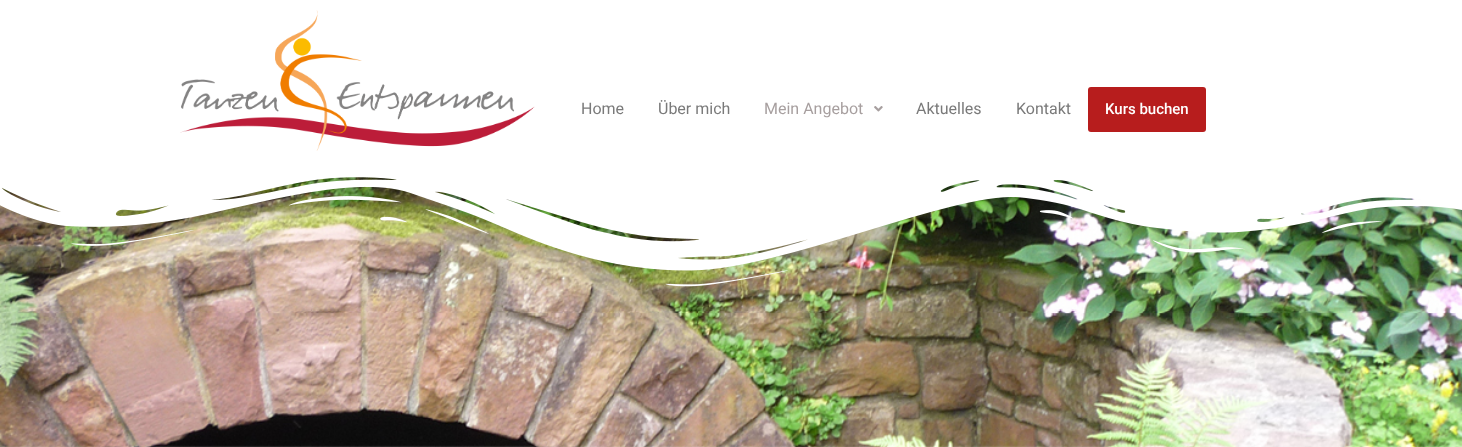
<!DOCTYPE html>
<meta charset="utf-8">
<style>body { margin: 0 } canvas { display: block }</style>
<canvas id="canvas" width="1462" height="447"></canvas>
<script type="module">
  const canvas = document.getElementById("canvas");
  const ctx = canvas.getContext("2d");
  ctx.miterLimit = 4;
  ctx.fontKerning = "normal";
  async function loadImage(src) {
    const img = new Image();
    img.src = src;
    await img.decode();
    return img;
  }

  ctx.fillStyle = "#ffffff";
  ctx.fillRect(0, 0, 1462, 447);
  ctx.drawImage(await loadImage("img1.png"), 180, 10, 355, 141);
  ctx.font = "16px Roboto";
  ctx.fillStyle = "#7a7a7a";
  ctx.fillText("Home", 581, 114);
  ctx.fillText("Über mich", 658, 114);
  ctx.fillStyle = "#a79f9f";
  ctx.fillText("Mein Angebot", 764, 114);
  ctx.drawImage(await loadImage("img2.png"), 874, 106, 9, 6);
  ctx.fillStyle = "#7a7a7a";
  ctx.fillText("Aktuelles", 916, 114);
  ctx.fillText("Kontakt", 1016, 114);
  ctx.fillStyle = "#b71d1d";
  ctx.beginPath();
  ctx.roundRect(1088, 87, 118, 45, 3);
  ctx.fill();
  ctx.font = "500 15px Roboto";
  ctx.fillStyle = "#ffffff";
  ctx.fillText("Kurs buchen", 1105, 114);
  ctx.drawImage(await loadImage("img3.png"), 0, 177, 1462, 270);
  ctx.drawImage(await loadImage("img4.png"), 0, 161, 1462, 126);
</script>
